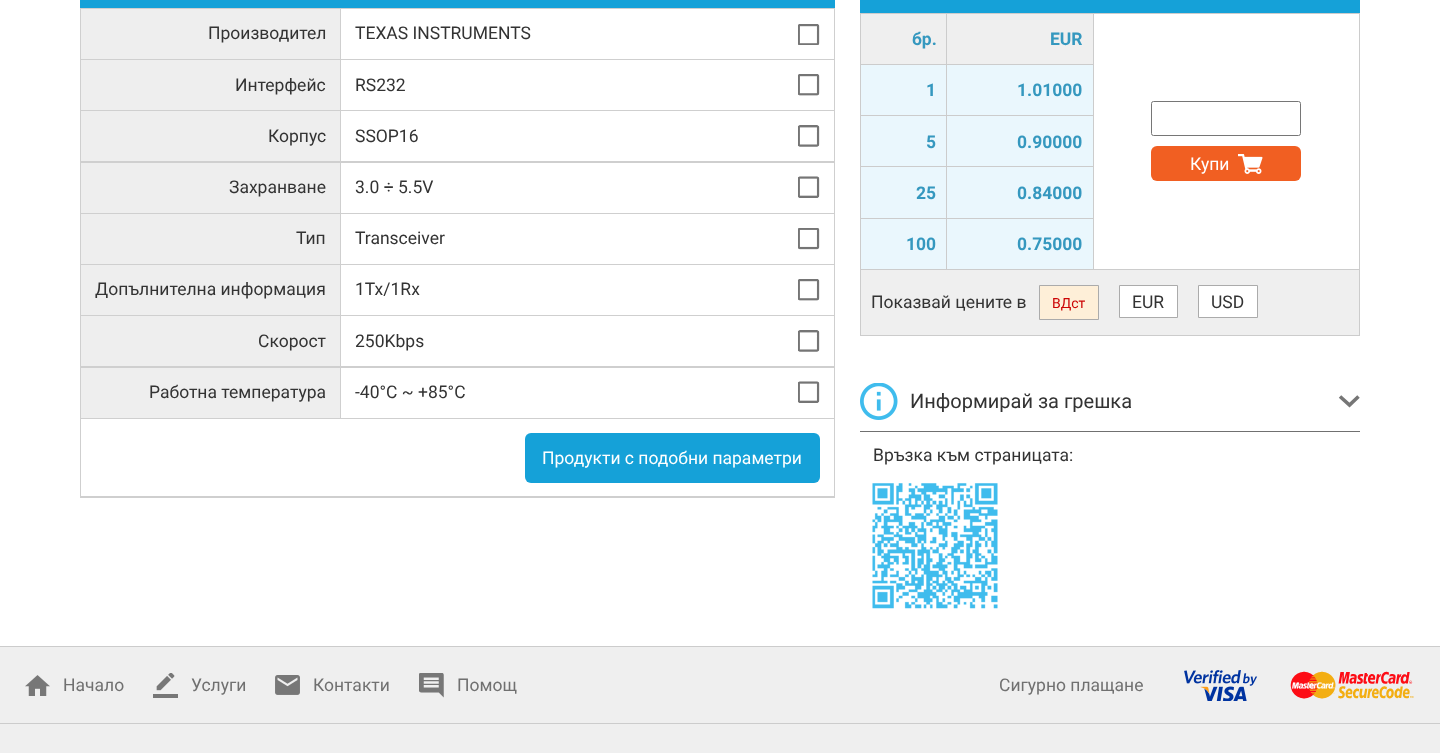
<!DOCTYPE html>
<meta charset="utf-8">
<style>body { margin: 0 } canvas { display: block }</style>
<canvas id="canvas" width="1440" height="753"></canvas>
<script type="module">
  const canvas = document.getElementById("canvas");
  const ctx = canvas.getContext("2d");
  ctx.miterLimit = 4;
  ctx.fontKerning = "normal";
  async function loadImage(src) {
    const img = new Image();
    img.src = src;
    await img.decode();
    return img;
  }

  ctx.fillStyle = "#ffffff";
  ctx.fillRect(0, 0, 1440, 753);
  ctx.fillStyle = "#15a1d8";
  ctx.fillRect(80, 0, 755, 8);
  ctx.fillStyle = "#cfcfcf";
  ctx.fillRect(80, 8, 755, 490);
  ctx.fillStyle = "#eeeeee";
  ctx.fillRect(81, 9, 259, 50);
  ctx.font = "17.5px Roboto";
  ctx.fillStyle = "#333333";
  ctx.fillText("Производител", 208, 39);
  ctx.fillStyle = "#ffffff";
  ctx.fillRect(341, 9, 493, 50);
  ctx.fillStyle = "#333333";
  ctx.fillText("TEXAS INSTRUMENTS", 355, 39);
  ctx.drawImage(await loadImage("img1.png"), 798, 24, 22, 21);
  ctx.fillStyle = "#eeeeee";
  ctx.fillRect(81, 60, 259, 50);
  ctx.fillStyle = "#333333";
  ctx.fillText("Интерфейс", 235, 91);
  ctx.fillStyle = "#ffffff";
  ctx.fillRect(341, 60, 493, 50);
  ctx.fillStyle = "#333333";
  ctx.fillText("RS232", 355, 91);
  ctx.drawImage(await loadImage("img2.png"), 798, 74, 22, 22);
  ctx.fillStyle = "#eeeeee";
  ctx.fillRect(81, 111, 259, 50);
  ctx.fillStyle = "#333333";
  ctx.fillText("Корпус", 268, 142);
  ctx.fillStyle = "#ffffff";
  ctx.fillRect(341, 111, 493, 50);
  ctx.fillStyle = "#333333";
  ctx.fillText("SSOP16", 355, 142);
  ctx.drawImage(await loadImage("img3.png"), 798, 125, 22, 22);
  ctx.fillStyle = "#eeeeee";
  ctx.fillRect(81, 163, 259, 50);
  ctx.fillStyle = "#333333";
  ctx.fillText("Захранване", 229, 193);
  ctx.fillStyle = "#ffffff";
  ctx.fillRect(341, 163, 493, 50);
  ctx.fillStyle = "#333333";
  ctx.fillText("3.0 ÷ 5.5V", 355, 193);
  ctx.drawImage(await loadImage("img4.png"), 798, 176, 22, 22);
  ctx.fillStyle = "#eeeeee";
  ctx.fillRect(81, 214, 259, 50);
  ctx.fillStyle = "#333333";
  ctx.fillText("Тип", 296, 244);
  ctx.fillStyle = "#ffffff";
  ctx.fillRect(341, 214, 493, 50);
  ctx.fillStyle = "#333333";
  ctx.fillText("Transceiver", 355, 244);
  ctx.drawImage(await loadImage("img5.png"), 798, 228, 22, 22);
  ctx.fillStyle = "#eeeeee";
  ctx.fillRect(81, 265, 259, 50);
  ctx.fillStyle = "#333333";
  ctx.fillText("Допълнителна информация", 95, 295);
  ctx.fillStyle = "#ffffff";
  ctx.fillRect(341, 265, 493, 50);
  ctx.fillStyle = "#333333";
  ctx.fillText("1Tx/1Rx", 355, 295);
  ctx.drawImage(await loadImage("img2.png"), 798, 279, 22, 22);
  ctx.fillStyle = "#eeeeee";
  ctx.fillRect(81, 316, 259, 50);
  ctx.fillStyle = "#333333";
  ctx.fillText("Скорост", 258, 347);
  ctx.fillStyle = "#ffffff";
  ctx.fillRect(341, 316, 493, 50);
  ctx.fillStyle = "#333333";
  ctx.fillText("250Kbps", 355, 347);
  ctx.drawImage(await loadImage("img3.png"), 798, 330, 22, 22);
  ctx.fillStyle = "#eeeeee";
  ctx.fillRect(81, 368, 259, 50);
  ctx.fillStyle = "#333333";
  ctx.fillText("Работна температура", 149, 398);
  ctx.fillStyle = "#ffffff";
  ctx.fillRect(341, 368, 493, 50);
  ctx.fillStyle = "#333333";
  ctx.fillText("-40°C ~ +85°C", 355, 398);
  ctx.drawImage(await loadImage("img4.png"), 798, 381, 22, 22);
  ctx.fillStyle = "#ffffff";
  ctx.fillRect(81, 419, 753, 77);
  ctx.fillStyle = "#15a1d8";
  ctx.beginPath();
  ctx.roundRect(525, 433, 295, 50, 6);
  ctx.fill();
  ctx.fillStyle = "#ffffff";
  ctx.fillText("Продукти с подобни параметри", 542, 464);
  ctx.fillStyle = "#15a1d8";
  ctx.fillRect(860, 0, 500, 13);
  ctx.fillStyle = "#cccccc";
  ctx.fillRect(860, 13, 500, 323);
  ctx.fillStyle = "#efefef";
  ctx.fillRect(861, 14, 232, 50);
  ctx.font = "bold 17.5px Roboto";
  ctx.fillStyle = "#3598bf";
  ctx.fillText("бр.", 912, 45);
  ctx.fillText("EUR", 1050, 45);
  ctx.fillStyle = "#eaf7fd";
  ctx.fillRect(861, 65, 232, 50);
  ctx.fillStyle = "#3598bf";
  ctx.fillText("1", 926, 96);
  ctx.fillText("1.01000", 1017, 96);
  ctx.fillStyle = "#eaf7fd";
  ctx.fillRect(861, 116, 232, 52);
  ctx.fillStyle = "#3598bf";
  ctx.fillText("5", 926, 148);
  ctx.fillStyle = "#cccccc";
  ctx.fillRect(946, 166, 148, 1);
  ctx.fillStyle = "#eaf7fd";
  ctx.fillRect(861, 168, 232, 50);
  ctx.fillRect(861, 219, 232, 50);
  ctx.fillStyle = "#cccccc";
  ctx.fillRect(946, 218, 1, 52);
  ctx.fillRect(946, 166, 1, 53);
  ctx.fillRect(861, 166, 87, 1);
  ctx.fillRect(946, 14, 1, 154);
  ctx.fillStyle = "#3598bf";
  ctx.fillText("0.90000", 1017, 148);
  ctx.fillText("25", 916, 199);
  ctx.fillText("0.84000", 1017, 199);
  ctx.fillText("100", 906, 250);
  ctx.fillText("0.75000", 1017, 250);
  ctx.fillStyle = "#ffffff";
  ctx.fillRect(1094, 14, 265, 255);
  ctx.beginPath();
  ctx.roundRect(1151.5, 101.5, 149, 34, 2);
  ctx.strokeStyle = "#767676";
  ctx.stroke();
  ctx.fillStyle = "#f15f22";
  ctx.beginPath();
  ctx.roundRect(1151, 146, 150, 35, 6);
  ctx.fill();
  ctx.font = "17.5px Roboto";
  ctx.fillStyle = "#ffffff";
  ctx.fillText("Купи", 1190, 170);
  ctx.drawImage(await loadImage("img6.png"), 1238, 154, 25, 20);
  ctx.fillStyle = "#efefef";
  ctx.fillRect(861, 270, 498, 65);
  ctx.fillStyle = "#333333";
  ctx.fillText("Показвай цените в", 871, 308);
  ctx.fillStyle = "#feefd8";
  ctx.beginPath();
  ctx.rect(1039.5, 285.5, 59, 34);
  ctx.fill();
  ctx.strokeStyle = "#ababab";
  ctx.stroke();
  ctx.font = "14px Roboto";
  ctx.fillStyle = "#cc0404";
  ctx.fillText("ВДст", 1052, 308);
  ctx.fillStyle = "#ffffff";
  ctx.beginPath();
  ctx.rect(1119.5, 285.5, 58, 32);
  ctx.fill();
  ctx.stroke();
  ctx.font = "17.5px Roboto";
  ctx.fillStyle = "#333333";
  ctx.fillText("EUR", 1132, 308);
  ctx.fillStyle = "#ffffff";
  ctx.beginPath();
  ctx.rect(1198.5, 285.5, 59, 32);
  ctx.fill();
  ctx.stroke();
  ctx.fillStyle = "#333333";
  ctx.fillText("USD", 1211, 308);
  ctx.fillStyle = "#707070";
  ctx.fillRect(860, 431, 500, 1);
  ctx.drawImage(await loadImage("img7.png"), 860, 383, 38, 37);
  ctx.font = "20px Roboto";
  ctx.fillStyle = "#333333";
  ctx.fillText("Информирай за грешка", 910, 408);
  ctx.beginPath();
  ctx.moveTo(1340, 396.5);
  ctx.lineTo(1349.5, 405);
  ctx.lineTo(1358.5, 396.5);
  ctx.strokeStyle = "#767676";
  ctx.lineWidth = 3.6;
  ctx.stroke();
  ctx.font = "17.5px Roboto";
  ctx.fillText("Връзка към страницата:", 873, 461);
  ctx.drawImage(await loadImage("img8.png"), 872, 483, 126, 126);
  ctx.fillStyle = "#efefef";
  ctx.fillRect(0, 647, 1440, 106);
  ctx.fillStyle = "#cccccc";
  ctx.fillRect(0, 646, 1440, 1);
  ctx.drawImage(await loadImage("img9.png"), 25, 675, 25, 21);
  ctx.fillStyle = "#707070";
  ctx.fillText("Начало", 63, 691);
  ctx.drawImage(await loadImage("img10.png"), 153, 673, 25, 25);
  ctx.fillText("Услуги", 191, 691);
  ctx.drawImage(await loadImage("img11.png"), 275, 675, 25, 20);
  ctx.fillText("Контакти", 313, 691);
  ctx.drawImage(await loadImage("img12.png"), 419, 673, 25, 25);
  ctx.fillText("Помощ", 457, 691);
  ctx.fillText("Сигурно плащане", 999, 691);
  ctx.drawImage(await loadImage("img13.png"), 1184, 670, 74, 31);
  ctx.drawImage(await loadImage("img14.png"), 1290, 671, 124, 28);
  ctx.fillStyle = "#cccccc";
  ctx.fillRect(0, 723, 1440, 1);
</script>
